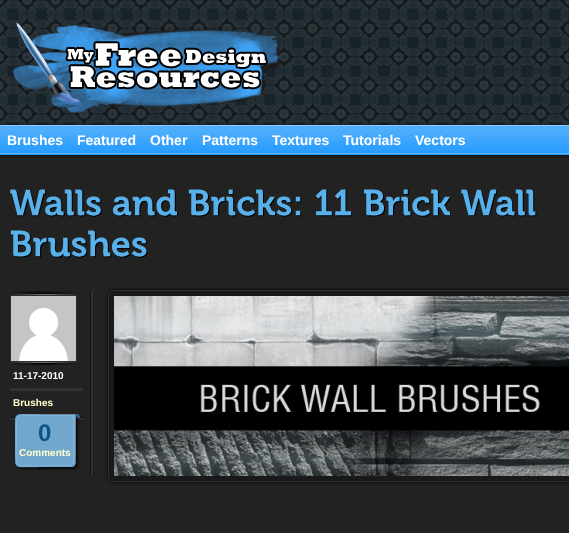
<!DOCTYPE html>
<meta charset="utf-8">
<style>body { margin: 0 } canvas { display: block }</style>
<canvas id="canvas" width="569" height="533"></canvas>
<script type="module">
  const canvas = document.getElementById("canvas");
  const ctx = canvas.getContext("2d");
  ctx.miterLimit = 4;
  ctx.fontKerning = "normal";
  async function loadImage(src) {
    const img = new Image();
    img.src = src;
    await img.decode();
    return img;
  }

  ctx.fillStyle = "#222222";
  ctx.fillRect(0, 0, 569, 533);
  ctx.drawImage(await loadImage("img1.png"), 0, 0, 569, 125);
  ctx.drawImage(await loadImage("img2.png"), 13, 22, 269, 91);
  ctx.drawImage(await loadImage("img3.png"), 0, 123, 569, 35);
  ctx.font = "bold 14px Liberation Sans";
  ctx.fillStyle = "#ffffff";
  ctx.fillText("Brushes", 7, 145);
  ctx.fillText("Featured", 77, 145);
  ctx.fillText("Other", 150, 145);
  ctx.fillText("Patterns", 202, 145);
  ctx.fillText("Textures", 272, 145);
  ctx.fillText("Tutorials", 343, 145);
  ctx.fillText("Vectors", 415, 145);
  ctx.drawImage(await loadImage("img4.png"), 10, 189, 92, 28);
  ctx.drawImage(await loadImage("img5.png"), 112, 189, 66, 28);
  ctx.drawImage(await loadImage("img6.png"), 188, 189, 114, 28);
  ctx.drawImage(await loadImage("img7.png"), 315, 189, 37, 28);
  ctx.drawImage(await loadImage("img8.png"), 363, 189, 88, 28);
  ctx.drawImage(await loadImage("img9.png"), 461, 189, 76, 28);
  ctx.drawImage(await loadImage("img10.png"), 10, 230, 138, 28);
  ctx.fillStyle = "#000000";
  ctx.filter = "blur(1.5px)";
  ctx.beginPath();
  ctx.roundRect(108, 290, 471, 192, 5);
  ctx.fill();
  ctx.filter = "none";
  ctx.fillStyle = "#191919";
  ctx.beginPath();
  ctx.roundRect(108.5, 290.5, 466, 191, 4.5);
  ctx.fill();
  ctx.strokeStyle = "#2e2e2e";
  ctx.stroke();
  ctx.drawImage(await loadImage("img11.png"), 90, 290, 3, 186);
  ctx.drawImage(await loadImage("img12.png"), 11, 291, 65, 74);
  ctx.strokeRect(10.5, 295.5, 66, 66);
  ctx.drawImage(await loadImage("img13.png"), 11, 296, 65, 65);
  ctx.fillStyle = "#323232";
  ctx.fillRect(10, 388, 73, 3);
  ctx.font = "bold 10px Liberation Sans";
  ctx.fillStyle = "#ffffff";
  ctx.fillText("11-17-2010", 13, 379);
  ctx.fillStyle = "#ffffcc";
  ctx.fillText("Brushes", 13, 406);
  ctx.drawImage(await loadImage("img14.png"), 10, 414, 74, 56);
  ctx.font = "bold 24px Liberation Sans";
  ctx.fillStyle = "#08548b";
  ctx.fillText("0", 38, 441);
  ctx.font = "bold 10px Liberation Sans";
  ctx.fillStyle = "#ffffcc";
  ctx.fillText("Comments", 19, 456);
  ctx.drawImage(await loadImage("img15.png"), 114, 296, 455, 180);
</script>
